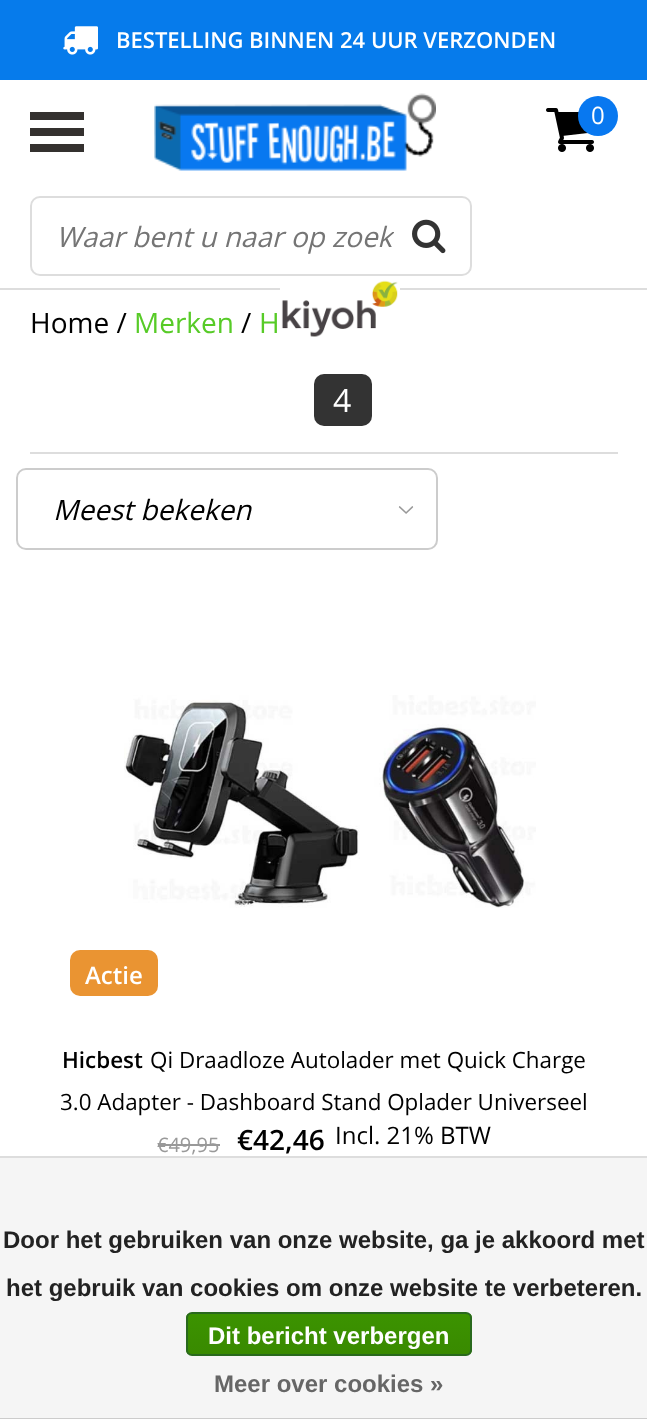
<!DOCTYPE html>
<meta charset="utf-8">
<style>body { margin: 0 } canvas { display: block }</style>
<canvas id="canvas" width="647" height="1419"></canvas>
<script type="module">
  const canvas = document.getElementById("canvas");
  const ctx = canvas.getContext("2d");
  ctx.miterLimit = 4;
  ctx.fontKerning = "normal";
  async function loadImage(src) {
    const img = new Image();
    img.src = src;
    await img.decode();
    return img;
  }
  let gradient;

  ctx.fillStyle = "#ffffff";
  ctx.fillRect(0, 0, 647, 1419);
  ctx.fillStyle = "#067beb";
  ctx.fillRect(0, 0, 647, 80);
  ctx.drawImage(await loadImage("img1.png"), 63, 26, 35, 29);
  ctx.font = "600 22px Open Sans";
  ctx.fillStyle = "#ffffff";
  ctx.fillText("BESTELLING BINNEN 24 UUR VERZONDEN", 116, 48);
  ctx.fillStyle = "#dddddd";
  ctx.fillRect(0, 288, 647, 2);
  ctx.fillStyle = "#34312f";
  ctx.fillRect(30, 112, 54, 8);
  ctx.fillRect(30, 128, 54, 8);
  ctx.fillRect(30, 144, 54, 8);
  ctx.drawImage(await loadImage("img2.png"), 154, 93, 282, 78);
  ctx.drawImage(await loadImage("img3.png"), 546, 108, 48, 44);
  ctx.fillStyle = "#0878f0";
  ctx.beginPath();
  ctx.arc(598, 116, 20, 0, Math.PI * 2);
  ctx.fill();
  ctx.font = "24px Open Sans";
  ctx.fillStyle = "#ffffff";
  ctx.fillText("0", 591, 124);
  ctx.beginPath();
  ctx.roundRect(31, 197, 440, 78, 9);
  ctx.strokeStyle = "#dddddd";
  ctx.lineWidth = 2;
  ctx.stroke();
  ctx.font = "italic 28px Open Sans";
  ctx.fillStyle = "#757575";
  ctx.fillText("Waar bent u naar op zoek", 56, 247);
  ctx.fillStyle = "#ffffff";
  ctx.fillRect(394, 232, 1, 1);
  ctx.drawImage(await loadImage("img4.png"), 412, 219, 34, 35);
  ctx.drawImage(await loadImage("img5.png"), 280, 280, 120, 57);
  ctx.font = "28px Open Sans";
  ctx.fillStyle = "#000000";
  ctx.fillText("Home /", 30, 333);
  ctx.fillStyle = "#57cb27";
  ctx.fillText("Merken", 134, 333);
  ctx.fillStyle = "#000000";
  ctx.fillText("/", 241, 333);
  ctx.fillStyle = "#57cb27";
  ctx.fillText("H", 259, 333);
  ctx.fillStyle = "#333333";
  ctx.beginPath();
  ctx.roundRect(314, 374, 58, 52, 10);
  ctx.fill();
  ctx.font = "32px Open Sans";
  ctx.fillStyle = "#ffffff";
  ctx.fillText("4", 333, 412);
  ctx.fillStyle = "#dddddd";
  ctx.fillRect(30, 452, 588, 2);
  ctx.drawImage(await loadImage("img6.png"), 398, 506, 16, 8);
  ctx.beginPath();
  ctx.roundRect(17, 469, 420, 80, 9);
  ctx.strokeStyle = "#cccccc";
  ctx.stroke();
  ctx.font = "italic 28px Open Sans";
  ctx.fillStyle = "#000000";
  ctx.fillText("Meest bekeken", 53, 520);
  ctx.drawImage(await loadImage("img7.png"), 124, 695, 412, 213);
  ctx.fillStyle = "#ea9432";
  ctx.beginPath();
  ctx.roundRect(70, 950, 88, 46, 10);
  ctx.fill();
  ctx.font = "600 24px Open Sans";
  ctx.fillStyle = "#ffffff";
  ctx.fillText("Actie", 85, 984);
  ctx.font = "600 22.4px Open Sans";
  ctx.fillStyle = "#000000";
  ctx.fillText("Hicbest", 62, 1068);
  ctx.font = "22.4px Open Sans";
  ctx.fillText("Qi Draadloze Autolader met Quick Charge", 150, 1068);
  ctx.fillText("3.0 Adapter - Dashboard Stand Oplader Universeel", 60, 1110);
  ctx.font = "20px Open Sans";
  ctx.fillStyle = "#999999";
  ctx.fillText("€49,95", 157, 1152);
  ctx.fillRect(158, 1144, 62, 2);
  ctx.font = "600 28px Open Sans";
  ctx.fillStyle = "#000000";
  ctx.fillText("€42,46", 237, 1150);
  ctx.font = "24px Open Sans";
  ctx.fillText("Incl. 21% BTW", 335, 1144);
  ctx.fillStyle = "#f5f5f5";
  ctx.fillRect(0, 1158, 647, 260);
  ctx.fillStyle = "#dddddd";
  ctx.fillRect(0, 1156, 647, 2);
  ctx.fillStyle = "#cccccc";
  ctx.fillRect(0, 1418, 647, 1);
  ctx.font = "bold 24px Liberation Sans";
  ctx.fillStyle = "#222222";
  ctx.fillText("Door het gebruiken van onze website, ga je akkoord met", 3, 1248);
  ctx.fillText("het gebruik van cookies om onze website te verbeteren.", 6, 1296);
  ctx.save();
  ctx.beginPath();
  ctx.roundRect(186, 1312, 286, 44, 6);
  ctx.clip();
  gradient = ctx.createLinearGradient(329, 1314, 329, 1354);
  gradient.addColorStop(0, "#3c9300");
  gradient.addColorStop(1, "#398a00");
  ctx.fillStyle = gradient;
  ctx.fillRect(186, 1314, 286, 40);
  ctx.restore();
  ctx.beginPath();
  ctx.roundRect(187, 1313, 284, 42, 5);
  ctx.strokeStyle = "#29691d";
  ctx.stroke();
  ctx.fillStyle = "#ffffff";
  ctx.fillText("Dit bericht verbergen", 208, 1344);
  ctx.fillStyle = "#666666";
  ctx.fillText("Meer over cookies »", 214, 1392);
</script>
